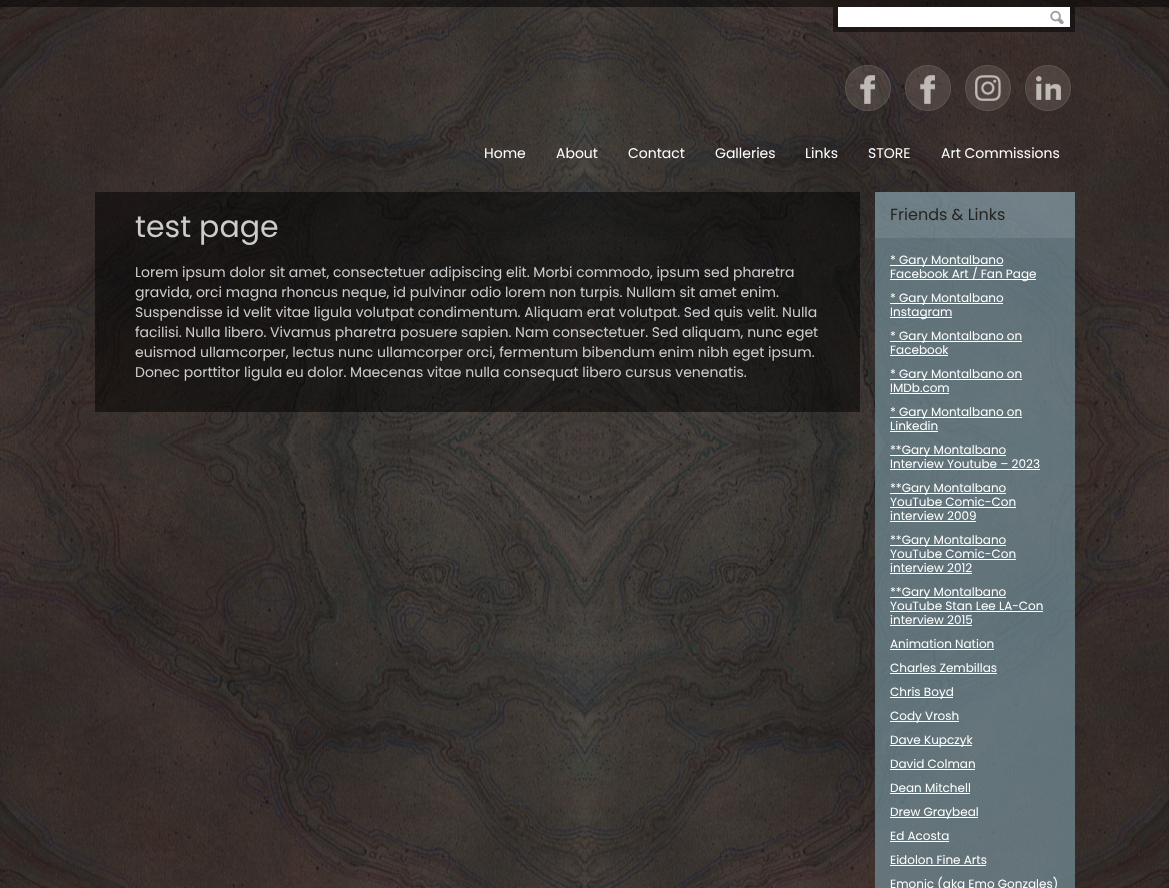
<!DOCTYPE html>
<meta charset="utf-8">
<style>body { margin: 0 } canvas { display: block }</style>
<canvas id="canvas" width="1169" height="888"></canvas>
<script type="module">
  const canvas = document.getElementById("canvas");
  const ctx = canvas.getContext("2d");
  ctx.miterLimit = 4;
  ctx.fontKerning = "normal";
  async function loadImage(src) {
    const img = new Image();
    img.src = src;
    await img.decode();
    return img;
  }

  ctx.fillStyle = "#ffffff";
  ctx.fillRect(0, 0, 1169, 888);
  ctx.drawImage(await loadImage("img1.png"), 0, 0, 1169, 888);
  ctx.fillStyle = "rgba(0, 0, 0, 0.5)";
  ctx.fillRect(0, 0, 1169, 7);
  ctx.fillRect(833, 7, 242, 25);
  ctx.fillStyle = "#ffffff";
  ctx.fillRect(838, 7, 232, 20);
  ctx.drawImage(await loadImage("img2.png"), 1050, 10, 14, 14);
  ctx.drawImage(await loadImage("img3.png"), 845, 65, 46, 46);
  ctx.drawImage(await loadImage("img4.png"), 905, 65, 46, 46);
  ctx.drawImage(await loadImage("img5.png"), 965, 65, 46, 46);
  ctx.drawImage(await loadImage("img6.png"), 1025, 65, 46, 46);
  ctx.font = "14px Poppins";
  ctx.fillText("Home", 484, 158);
  ctx.fillText("About", 556, 158);
  ctx.fillText("Contact", 628, 158);
  ctx.fillText("Galleries", 715, 158);
  ctx.fillText("Links", 805, 158);
  ctx.fillText("STORE", 868, 158);
  ctx.fillText("Art Commissions", 941, 158);
  ctx.fillStyle = "rgba(0, 0, 0, 0.5)";
  ctx.fillRect(95, 192, 765, 220);
  ctx.font = "30px Poppins";
  ctx.fillStyle = "#cccccc";
  ctx.fillText("test page", 135, 237);
  ctx.font = "14px Poppins";
  ctx.fillText("Lorem ipsum dolor sit amet, consectetuer adipiscing elit. Morbi commodo, ipsum sed pharetra", 135, 277);
  ctx.fillText("gravida, orci magna rhoncus neque, id pulvinar odio lorem non turpis. Nullam sit amet enim.", 135, 297);
  ctx.fillText("Suspendisse id velit vitae ligula volutpat condimentum. Aliquam erat volutpat. Sed quis velit. Nulla", 135, 317);
  ctx.fillText("facilisi. Nulla libero. Vivamus pharetra posuere sapien. Nam consectetuer. Sed aliquam, nunc eget", 135, 337);
  ctx.fillText("euismod ullamcorper, lectus nunc ullamcorper orci, fermentum bibendum enim nibh eget ipsum.", 135, 357);
  ctx.fillText("Donec porttitor ligula eu dolor. Maecenas vitae nulla consequat libero cursus venenatis.", 135, 377);
  ctx.fillStyle = "rgba(144, 172, 185, 0.65)";
  ctx.fillRect(875, 192, 200, 46);
  ctx.font = "16px Poppins";
  ctx.fillStyle = "#262423";
  ctx.fillText("Friends & Links", 890, 220);
  ctx.fillStyle = "rgba(123, 154, 165, 0.65)";
  ctx.fillRect(875, 238, 200, 650);
  ctx.fillStyle = "#ffffff";
  ctx.fillRect(890, 265, 113, 1);
  ctx.font = "12px Poppins";
  ctx.fillText("* Gary Montalbano", 890, 264);
  ctx.fillRect(890, 279, 146, 1);
  ctx.fillText("Facebook Art / Fan Page", 890, 278);
  ctx.fillRect(890, 303, 113, 1);
  ctx.fillText("* Gary Montalbano", 890, 302);
  ctx.fillRect(890, 317, 62, 1);
  ctx.fillText("Instagram", 890, 316);
  ctx.fillRect(890, 341, 132, 1);
  ctx.fillText("* Gary Montalbano on", 890, 340);
  ctx.fillText("Facebook", 890, 354);
  ctx.fillRect(890, 355, 58, 1);
  ctx.fillRect(890, 379, 132, 1);
  ctx.fillText("* Gary Montalbano on", 890, 378);
  ctx.fillText("IMDb.com", 890, 392);
  ctx.fillRect(890, 393, 59, 1);
  ctx.fillRect(890, 417, 132, 1);
  ctx.fillText("* Gary Montalbano on", 890, 416);
  ctx.fillText("Linkedin", 890, 430);
  ctx.fillRect(890, 431, 48, 1);
  ctx.fillRect(890, 455, 116, 1);
  ctx.fillText("**Gary Montalbano", 890, 454);
  ctx.fillText("Interview Youtube – 2023", 890, 468);
  ctx.fillRect(890, 469, 150, 1);
  ctx.fillRect(890, 493, 116, 1);
  ctx.fillText("**Gary Montalbano", 890, 492);
  ctx.fillText("YouTube Comic-Con", 890, 506);
  ctx.fillRect(890, 507, 126, 1);
  ctx.fillText("interview 2009", 890, 520);
  ctx.fillRect(890, 521, 86, 1);
  ctx.fillRect(890, 545, 116, 1);
  ctx.fillText("**Gary Montalbano", 890, 544);
  ctx.fillText("YouTube Comic-Con", 890, 558);
  ctx.fillRect(890, 559, 126, 1);
  ctx.fillText("interview 2012", 890, 572);
  ctx.fillRect(890, 573, 82, 1);
  ctx.fillRect(890, 597, 116, 1);
  ctx.fillText("**Gary Montalbano", 890, 596);
  ctx.fillText("YouTube Stan Lee LA-Con", 890, 610);
  ctx.fillRect(890, 611, 153, 1);
  ctx.fillText("interview 2015", 890, 624);
  ctx.fillRect(890, 625, 82, 1);
  ctx.fillText("Animation Nation", 890, 648);
  ctx.fillRect(890, 649, 104, 1);
  ctx.fillText("Charles Zembillas", 890, 672);
  ctx.fillRect(890, 673, 107, 1);
  ctx.fillRect(890, 697, 63, 1);
  ctx.fillText("Chris Boyd", 890, 696);
  ctx.fillRect(890, 721, 69, 1);
  ctx.fillText("Cody Vrosh", 890, 720);
  ctx.fillRect(890, 745, 82, 1);
  ctx.fillText("Dave Kupczyk", 890, 744);
  ctx.fillText("David Colman", 890, 768);
  ctx.fillRect(890, 769, 85, 1);
  ctx.fillText("Dean Mitchell", 890, 792);
  ctx.fillRect(890, 793, 80, 1);
  ctx.fillRect(890, 817, 88, 1);
  ctx.fillText("Drew Graybeal", 890, 816);
  ctx.fillText("Ed Acosta", 890, 840);
  ctx.fillRect(890, 841, 59, 1);
  ctx.fillText("Eidolon Fine Arts", 890, 864);
  ctx.fillRect(890, 865, 96, 1);
  ctx.fillText("Emonic (aka Emo Gonzales)", 890, 888);
</script>
